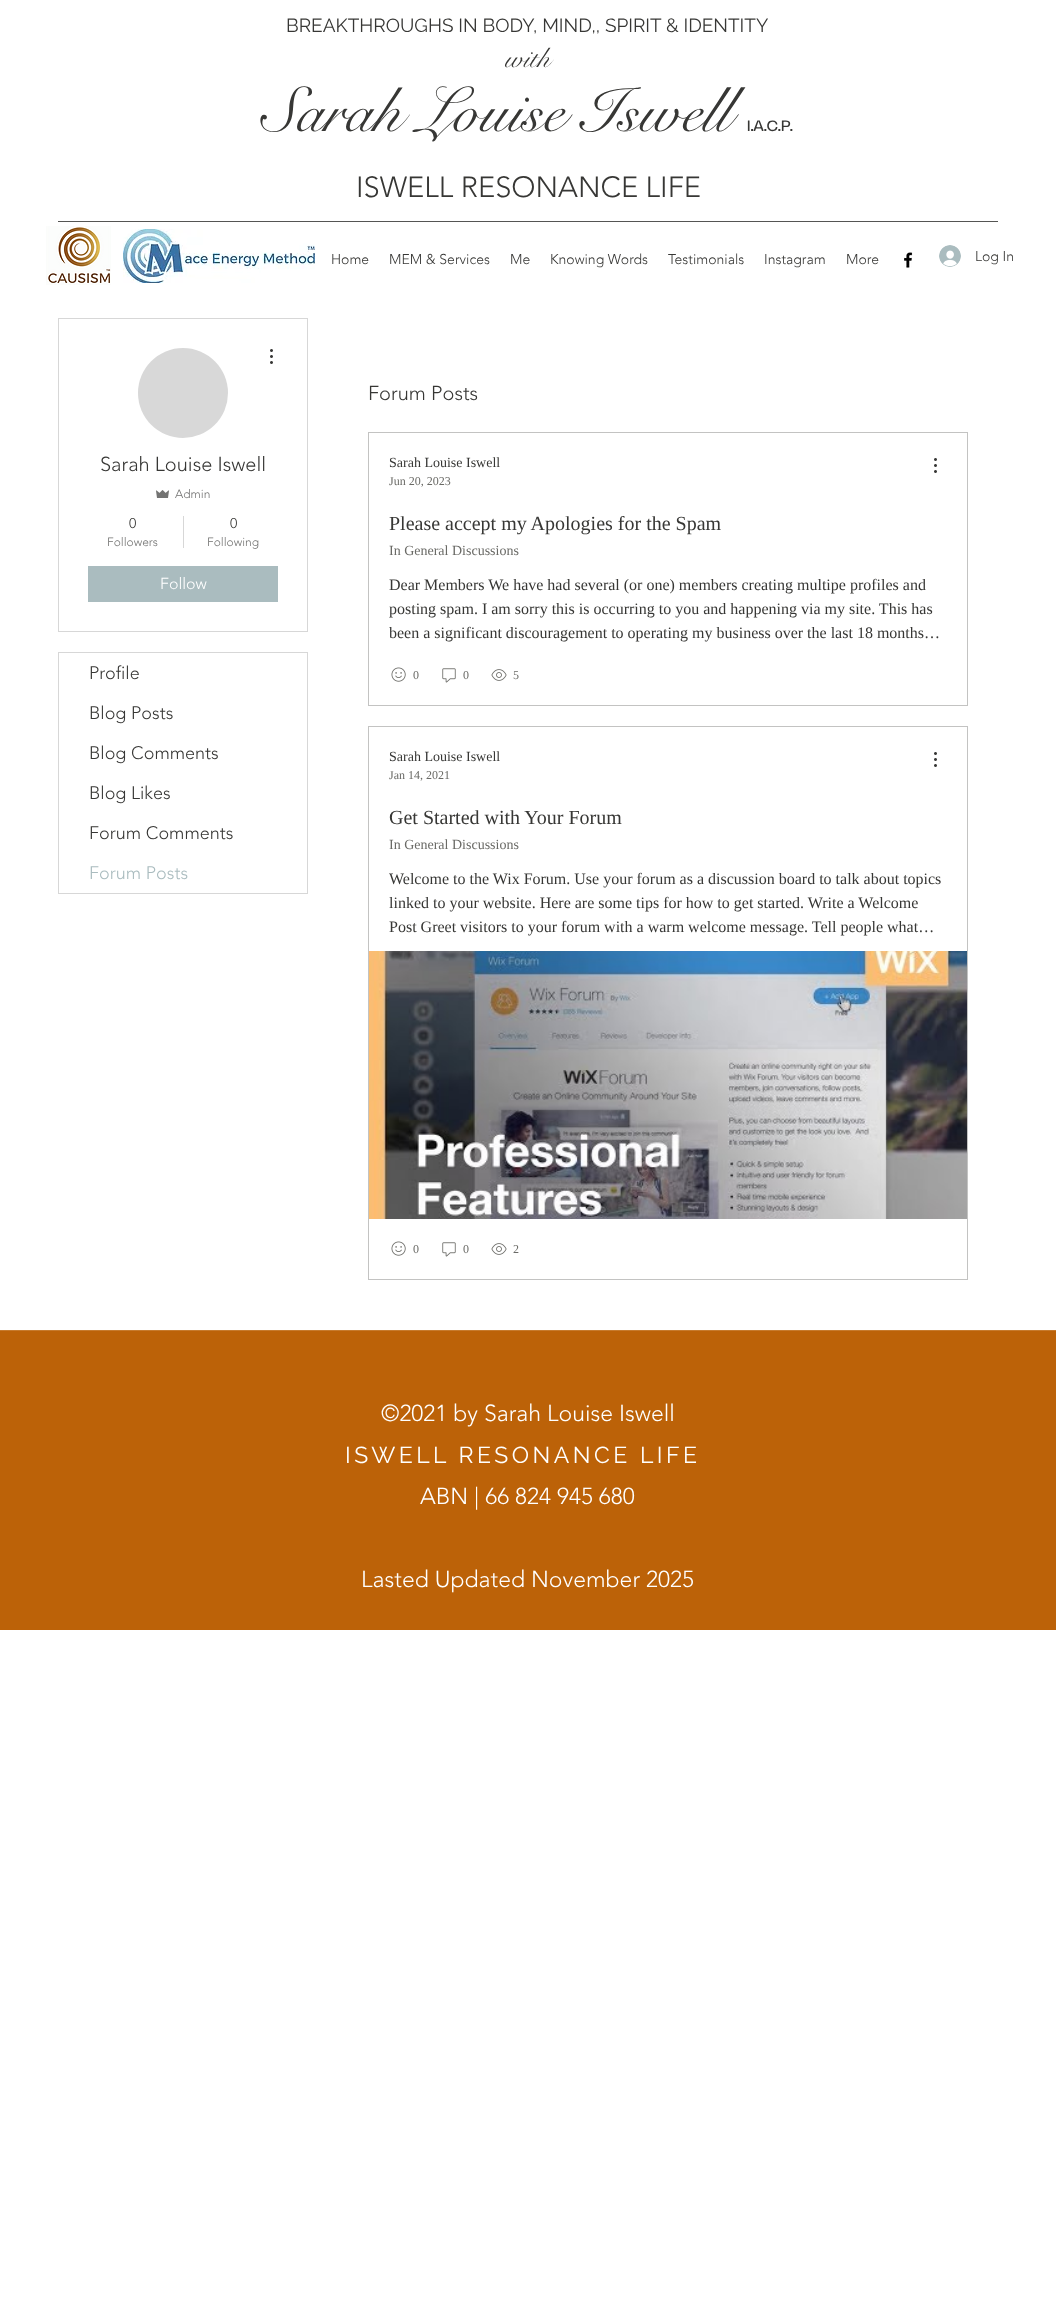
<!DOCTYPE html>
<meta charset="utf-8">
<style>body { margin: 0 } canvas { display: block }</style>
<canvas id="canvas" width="1056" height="2306"></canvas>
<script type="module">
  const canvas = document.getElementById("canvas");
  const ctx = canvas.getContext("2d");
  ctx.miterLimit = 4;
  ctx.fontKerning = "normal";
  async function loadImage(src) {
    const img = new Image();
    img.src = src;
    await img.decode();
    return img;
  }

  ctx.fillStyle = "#ffffff";
  ctx.fillRect(0, 0, 1056, 2306);
  ctx.font = "19px Raleway";
  ctx.fillStyle = "#373735";
  ctx.fillText("BREAKTHROUGHS IN BODY, MIND,, SPIRIT & IDENTITY", 286, 32);
  ctx.font = "28px 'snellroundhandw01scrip'";
  ctx.fillText("with", 505, 67);
  ctx.font = "63px 'snellroundhandw01scrip'";
  ctx.fillText("Sarah Louise Iswell", 262, 131);
  ctx.font = "15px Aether";
  ctx.fillText("I.A.C.P.", 747, 131);
  ctx.font = "300 29px 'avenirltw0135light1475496'";
  ctx.fillText("ISWELL RESONANCE LIFE", 356, 197);
  ctx.fillStyle = "#555553";
  ctx.fillRect(58, 221, 940, 1);
  ctx.drawImage(await loadImage("img1.png"), 46, 226, 65, 59);
  ctx.drawImage(await loadImage("img2.png"), 123, 229, 192, 54);
  ctx.font = "300 14px 'avenirltw0135light1475496'";
  ctx.fillStyle = "#373735";
  ctx.fillText("Home", 331, 264);
  ctx.fillText("MEM & Services", 389, 264);
  ctx.fillText("Me", 510, 264);
  ctx.fillText("Knowing Words", 550, 264);
  ctx.fillText("Testimonials", 668, 264);
  ctx.fillText("Instagram", 764, 264);
  ctx.fillText("More", 846, 264);
  ctx.drawImage(await loadImage("img3.png"), 904, 252, 9, 16);
  ctx.drawImage(await loadImage("img4.png"), 939, 245, 22, 22);
  ctx.fillText("Log In", 975, 261);
  ctx.strokeStyle = "#d7d7d7";
  ctx.strokeRect(58.5, 318.5, 249, 313);
  ctx.fillStyle = "#d8d8d8";
  ctx.beginPath();
  ctx.arc(183, 393, 45, 0, Math.PI * 2);
  ctx.fill();
  ctx.drawImage(await loadImage("img5.png"), 270, 349, 3, 15);
  ctx.font = "300 20px 'avenirltw0135light1475496'";
  ctx.fillStyle = "#373735";
  ctx.fillText("Sarah Louise Iswell", 100, 471);
  ctx.drawImage(await loadImage("img6.png"), 156, 490, 13, 8);
  ctx.font = "300 12px 'avenirltw0135light1475496'";
  ctx.fillStyle = "#737372";
  ctx.fillText("Admin", 175, 498);
  ctx.font = "300 14px 'avenirltw0135light1475496'";
  ctx.fillStyle = "#373735";
  ctx.fillText("0", 129, 528);
  ctx.font = "300 12px 'avenirltw0135light1475496'";
  ctx.fillStyle = "#737372";
  ctx.fillText("Followers", 107, 546);
  ctx.fillStyle = "#d7d7d7";
  ctx.fillRect(183, 516, 1, 32);
  ctx.font = "300 14px 'avenirltw0135light1475496'";
  ctx.fillStyle = "#373735";
  ctx.fillText("0", 230, 528);
  ctx.font = "300 12px 'avenirltw0135light1475496'";
  ctx.fillStyle = "#737372";
  ctx.fillText("Following", 207, 546);
  ctx.fillStyle = "#aabcbf";
  ctx.fillRect(88, 566, 190, 36);
  ctx.font = "300 16px 'avenirltw0135light1475496'";
  ctx.fillStyle = "#ffffff";
  ctx.fillText("Follow", 160, 589);
  ctx.strokeRect(58.5, 652.5, 249, 241);
  ctx.font = "300 18px 'avenirltw0135light1475496'";
  ctx.fillStyle = "#373735";
  ctx.fillText("Profile", 89, 679);
  ctx.fillText("Blog Posts", 89, 719);
  ctx.fillText("Blog Comments", 89, 759);
  ctx.fillText("Blog Likes", 89, 799);
  ctx.fillText("Forum Comments", 89, 839);
  ctx.fillStyle = "#aabcbf";
  ctx.fillText("Forum Posts", 89, 879);
  ctx.font = "300 20px 'avenirltw0135light1475496'";
  ctx.fillStyle = "#373735";
  ctx.fillText("Forum Posts", 368, 400);
  ctx.strokeStyle = "#c3c3c2";
  ctx.strokeRect(368.5, 432.5, 599, 273);
  ctx.font = "14px Liberation Serif";
  ctx.fillText("Sarah Louise Iswell", 389, 467);
  ctx.font = "12px Liberation Serif";
  ctx.fillStyle = "#6a6a66";
  ctx.fillText("Jun 20, 2023", 389, 485);
  ctx.drawImage(await loadImage("img5.png"), 934, 458, 3, 15);
  ctx.font = "20px Liberation Serif";
  ctx.fillStyle = "#373735";
  ctx.fillText("Please accept my Apologies for the Spam", 389, 530);
  ctx.font = "14px Liberation Serif";
  ctx.fillStyle = "#6a6a66";
  ctx.fillText("In General Discussions", 389, 555);
  ctx.font = "16px Liberation Serif";
  ctx.fillStyle = "#373735";
  ctx.fillText("Dear Members We have had several (or one) members creating multipe profiles and", 389, 590);
  ctx.fillText("posting spam. I am sorry this is occurring to you and happening via my site. This has", 389, 614);
  ctx.fillText("been a significant discouragement to operating my business over the last 18 months…", 389, 638);
  ctx.drawImage(await loadImage("img7.png"), 391, 667, 15, 15);
  ctx.font = "12px Liberation Serif";
  ctx.fillStyle = "#6a6a66";
  ctx.fillText("0", 413, 679);
  ctx.drawImage(await loadImage("img8.png"), 442, 668, 14, 15);
  ctx.fillText("0", 463, 679);
  ctx.drawImage(await loadImage("img9.png"), 491, 669, 16, 12);
  ctx.fillText("5", 513, 679);
  ctx.strokeRect(368.5, 726.5, 599, 553);
  ctx.font = "14px Liberation Serif";
  ctx.fillStyle = "#373735";
  ctx.fillText("Sarah Louise Iswell", 389, 761);
  ctx.font = "12px Liberation Serif";
  ctx.fillStyle = "#6a6a66";
  ctx.fillText("Jan 14, 2021", 389, 779);
  ctx.drawImage(await loadImage("img5.png"), 934, 752, 3, 15);
  ctx.font = "20px Liberation Serif";
  ctx.fillStyle = "#373735";
  ctx.fillText("Get Started with Your Forum", 389, 824);
  ctx.font = "14px Liberation Serif";
  ctx.fillStyle = "#6a6a66";
  ctx.fillText("In General Discussions", 389, 849);
  ctx.font = "16px Liberation Serif";
  ctx.fillStyle = "#373735";
  ctx.fillText("Welcome to the Wix Forum. Use your forum as a discussion board to talk about topics", 389, 884);
  ctx.fillText("linked to your website. Here are some tips for how to get started. Write a Welcome", 389, 908);
  ctx.fillText("Post Greet visitors to your forum with a warm welcome message. Tell people what…", 389, 932);
  ctx.drawImage(await loadImage("img10.png"), 369, 951, 598, 268);
  ctx.drawImage(await loadImage("img7.png"), 391, 1241, 15, 15);
  ctx.font = "12px Liberation Serif";
  ctx.fillStyle = "#6a6a66";
  ctx.fillText("0", 413, 1253);
  ctx.drawImage(await loadImage("img8.png"), 442, 1242, 14, 15);
  ctx.fillText("0", 463, 1253);
  ctx.drawImage(await loadImage("img9.png"), 491, 1243, 16, 12);
  ctx.fillText("2", 513, 1253);
  ctx.fillStyle = "#bc6208";
  ctx.fillRect(0, 1331, 1056, 299);
  ctx.fillStyle = "#c67a2d";
  ctx.fillRect(0, 1330, 1056, 1);
  ctx.font = "300 23px 'avenirltw0135light1475496'";
  ctx.fillStyle = "#ffffff";
  ctx.fillText("©2021 by Sarah Louise Iswell", 381, 1421);
  ctx.letterSpacing = "3.45px";
  ctx.font = "23px Raleway";
  ctx.fillText("ISWELL RESONANCE LIFE", 345, 1463);
  ctx.letterSpacing = "0px";
  ctx.font = "300 23px 'avenirltw0135light1475496'";
  ctx.fillText("ABN | 66 824 945 680", 420, 1504);
  ctx.fillText("Lasted Updated November 2025", 361, 1587);
</script>
